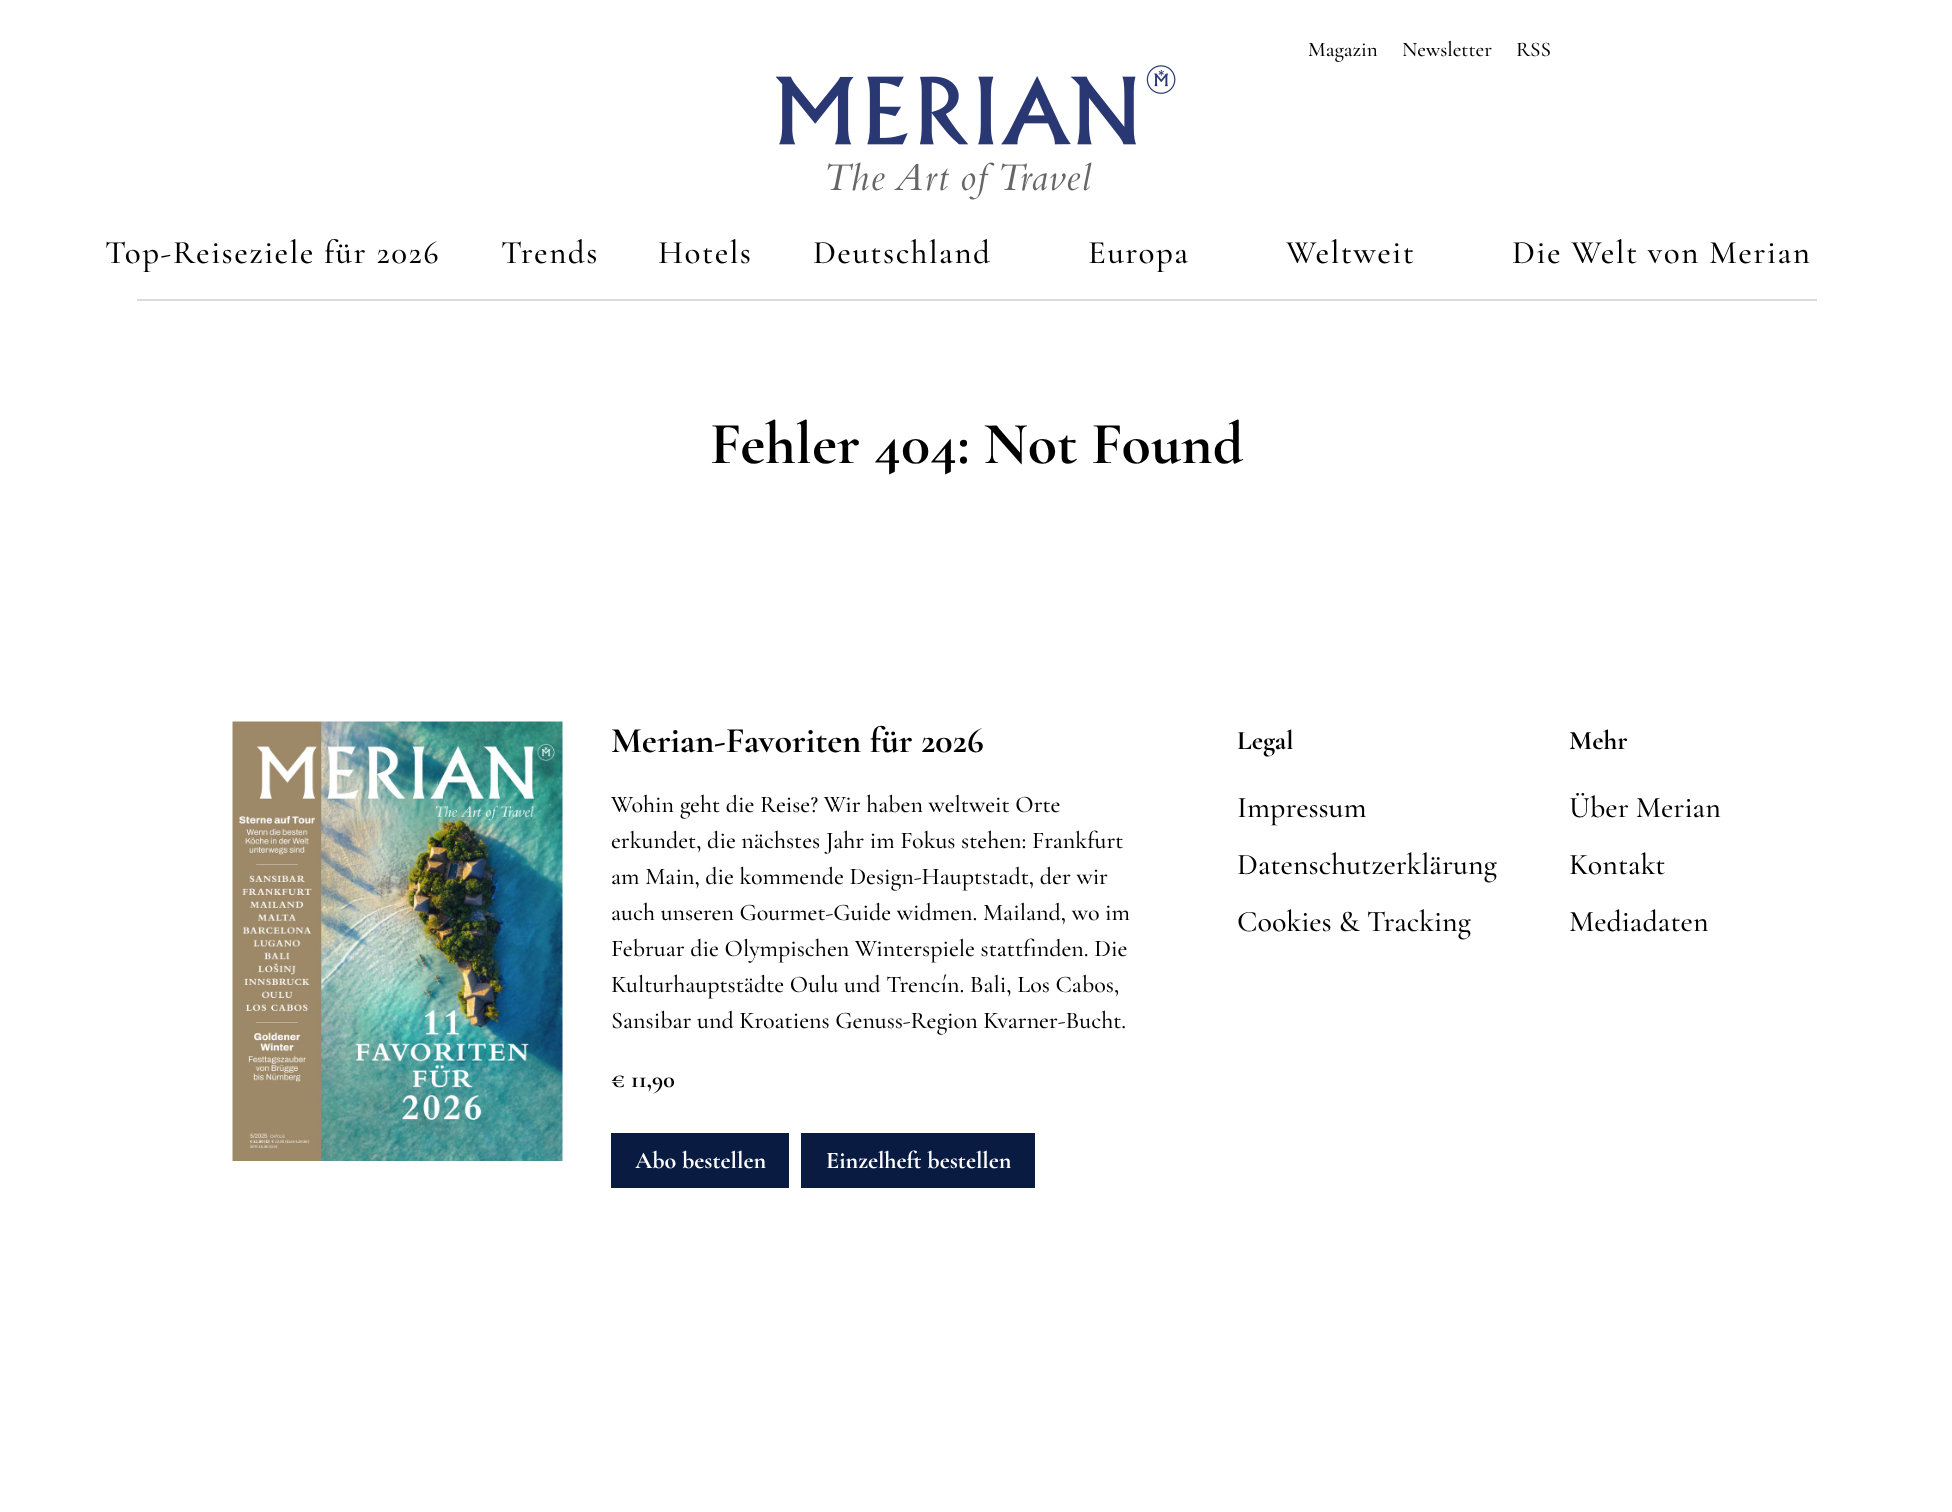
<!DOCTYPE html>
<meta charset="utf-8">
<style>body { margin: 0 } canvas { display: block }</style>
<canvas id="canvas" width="1952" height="1512"></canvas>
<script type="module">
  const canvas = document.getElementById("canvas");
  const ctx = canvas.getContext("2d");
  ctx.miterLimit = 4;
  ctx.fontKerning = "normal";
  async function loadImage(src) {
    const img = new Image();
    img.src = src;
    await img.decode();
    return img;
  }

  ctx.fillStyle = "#ffffff";
  ctx.fillRect(0, 0, 1952, 1512);
  ctx.font = "500 21px Cormorant Garamond";
  ctx.fillStyle = "#000000";
  ctx.fillText("Magazin", 1308, 56);
  ctx.fillText("Newsletter", 1402, 56);
  ctx.fillText("RSS", 1516, 56);
  ctx.drawImage(await loadImage("img1.png"), 776, 65, 400, 135);
  ctx.fillStyle = "#dbdbdb";
  ctx.fillRect(137, 299, 1680, 2);
  ctx.letterSpacing = "1.5px";
  ctx.font = "500 33px Cormorant Garamond";
  ctx.fillStyle = "#000000";
  ctx.fillText("Top-Reiseziele für 2026", 105, 263);
  ctx.fillText("Trends", 501, 263);
  ctx.fillText("Hotels", 658, 263);
  ctx.fillText("Deutschland", 813, 263);
  ctx.fillText("Europa", 1088, 263);
  ctx.fillText("Weltweit", 1286, 263);
  ctx.fillText("Die Welt von Merian", 1512, 263);
  ctx.letterSpacing = "0px";
  ctx.font = "bold 60px Cormorant Garamond";
  ctx.fillText("Fehler 404: Not Found", 710, 463);
  ctx.drawImage(await loadImage("img2.png"), 232, 721, 331, 440);
  ctx.font = "bold 36px Cormorant Garamond";
  ctx.fillText("Merian-Favoriten für 2026", 611, 752);
  ctx.font = "500 24px Cormorant Garamond";
  ctx.fillText("Wohin geht die Reise? Wir haben weltweit Orte", 611, 812);
  ctx.fillText("erkundet, die nächstes Jahr im Fokus stehen: Frankfurt", 611, 848);
  ctx.fillText("am Main, die kommende Design-Hauptstadt, der wir", 611, 884);
  ctx.fillText("auch unseren Gourmet-Guide widmen. Mailand, wo im", 611, 920);
  ctx.fillText("Februar die Olympischen Winterspiele stattfinden. Die", 611, 956);
  ctx.fillText("Kulturhauptstädte Oulu und Trencín. Bali, Los Cabos,", 611, 992);
  ctx.fillText("Sansibar und Kroatiens Genuss-Region Kvarner-Bucht.", 611, 1028);
  ctx.font = "bold 24px Cormorant Garamond";
  ctx.fillText("€ 11,90", 611, 1087);
  ctx.fillStyle = "#091b41";
  ctx.fillRect(611, 1133, 178, 55);
  ctx.fillStyle = "#ffffff";
  ctx.fillText("Abo bestellen", 635, 1168);
  ctx.fillStyle = "#091b41";
  ctx.fillRect(801, 1133, 234, 55);
  ctx.fillStyle = "#ffffff";
  ctx.fillText("Einzelheft bestellen", 826, 1168);
  ctx.font = "bold 27px Cormorant Garamond";
  ctx.fillStyle = "#000000";
  ctx.fillText("Legal", 1237, 749);
  ctx.font = "500 30px Cormorant Garamond";
  ctx.fillText("Impressum", 1237, 817);
  ctx.fillText("Datenschutzerklärung", 1237, 874);
  ctx.fillText("Cookies & Tracking", 1237, 931);
  ctx.font = "bold 27px Cormorant Garamond";
  ctx.fillText("Mehr", 1569, 749);
  ctx.font = "500 30px Cormorant Garamond";
  ctx.fillText("Über Merian", 1569, 817);
  ctx.fillText("Kontakt", 1569, 874);
  ctx.fillText("Mediadaten", 1569, 931);
</script>
